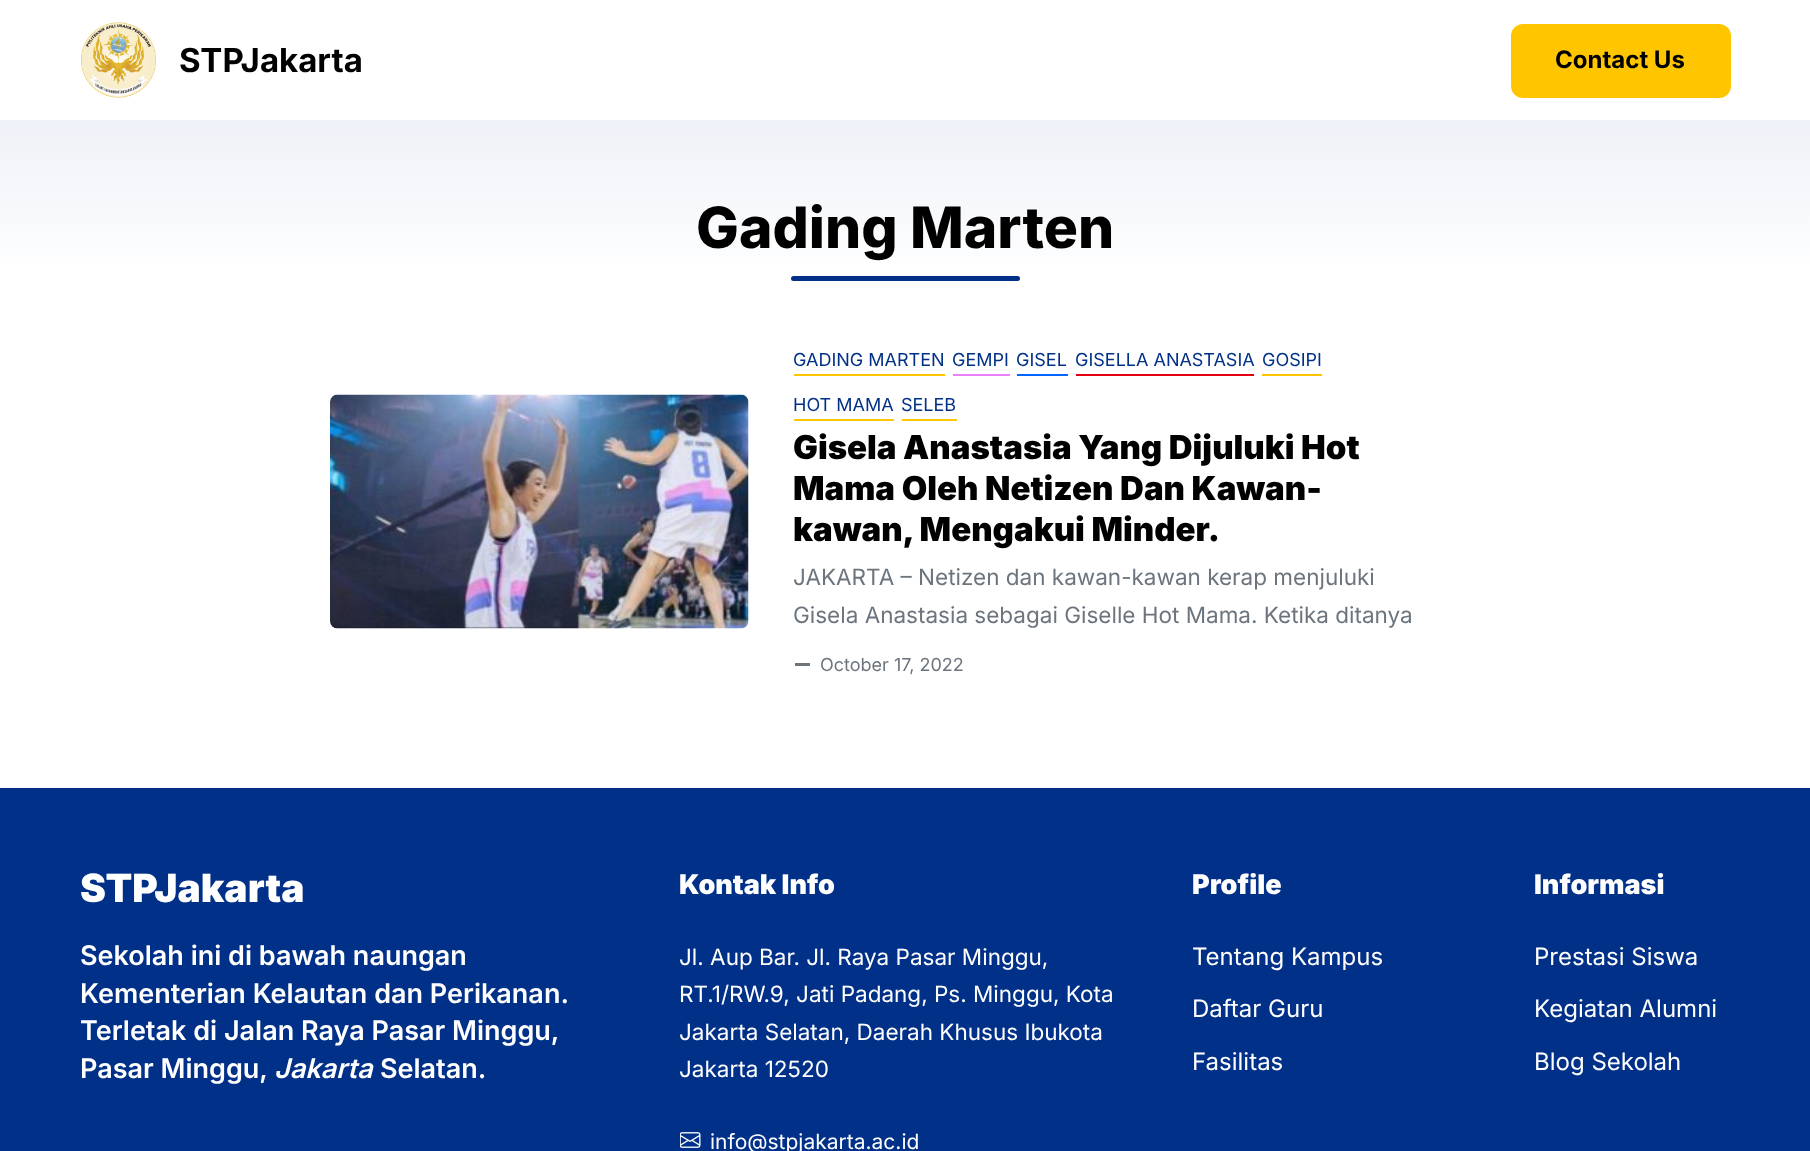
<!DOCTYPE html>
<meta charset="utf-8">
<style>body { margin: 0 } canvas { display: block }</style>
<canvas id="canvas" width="1810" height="1151"></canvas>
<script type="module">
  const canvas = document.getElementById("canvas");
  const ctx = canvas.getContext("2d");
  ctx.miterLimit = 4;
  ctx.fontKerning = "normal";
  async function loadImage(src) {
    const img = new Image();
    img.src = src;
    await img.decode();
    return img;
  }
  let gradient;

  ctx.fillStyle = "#ffffff";
  ctx.fillRect(0, 0, 1810, 1151);
  ctx.drawImage(await loadImage("img1.png"), 81, 22, 75, 76);
  ctx.font = "bold 33px Inter";
  ctx.fillStyle = "#000000";
  ctx.fillText("STPJakarta", 179, 72);
  ctx.fillStyle = "#ffc600";
  ctx.beginPath();
  ctx.roundRect(1511, 24, 220, 74, 12);
  ctx.fill();
  ctx.font = "bold 24px Inter";
  ctx.fillStyle = "#000000";
  ctx.fillText("Contact Us", 1555, 68);
  gradient = ctx.createLinearGradient(905, 281, 905, 120);
  gradient.addColorStop(0, "#ffffff");
  gradient.addColorStop(1, "#eef1f7");
  ctx.fillStyle = gradient;
  ctx.fillRect(0, 120, 1810, 137);
  ctx.font = "800 57px Inter";
  ctx.fillStyle = "#000000";
  ctx.fillText("Gading Marten", 696, 248);
  ctx.fillStyle = "#003087";
  ctx.beginPath();
  ctx.roundRect(791, 276, 229, 5, 2.5);
  ctx.fill();
  ctx.drawImage(await loadImage("img2.png"), 330, 394, 419, 235);
  ctx.font = "18px Inter";
  ctx.fillText("GADING MARTEN", 793, 366);
  ctx.fillStyle = "#ffc600";
  ctx.fillRect(794, 374, 151, 2);
  ctx.fillStyle = "#003087";
  ctx.fillText("GEMPI", 952, 366);
  ctx.fillStyle = "#ea80fc";
  ctx.fillRect(953, 374, 57, 2);
  ctx.fillStyle = "#003087";
  ctx.fillText("GISEL", 1016, 366);
  ctx.fillStyle = "#0166ff";
  ctx.fillRect(1017, 374, 51, 2);
  ctx.fillStyle = "#003087";
  ctx.fillText("GISELLA ANASTASIA", 1075, 366);
  ctx.fillStyle = "#e50011";
  ctx.fillRect(1076, 374, 178, 2);
  ctx.fillStyle = "#003087";
  ctx.fillText("GOSIPI", 1262, 366);
  ctx.fillStyle = "#ffc600";
  ctx.fillRect(1262, 374, 60, 2);
  ctx.fillStyle = "#003087";
  ctx.fillText("HOT MAMA", 793, 411);
  ctx.fillStyle = "#ffc600";
  ctx.fillRect(794, 419, 100, 2);
  ctx.fillStyle = "#003087";
  ctx.fillText("SELEB", 901, 411);
  ctx.fillStyle = "#ffc600";
  ctx.fillRect(902, 419, 55, 2);
  ctx.font = "900 33px Inter";
  ctx.fillStyle = "#000000";
  ctx.fillText("Gisela Anastasia Yang Dijuluki Hot", 793, 459);
  ctx.fillText("Mama Oleh Netizen Dan Kawan-", 793, 500);
  ctx.fillText("kawan, Mengakui Minder.", 793, 541);
  ctx.font = "22.5px Inter";
  ctx.fillStyle = "#6c757d";
  ctx.fillText("JAKARTA – Netizen dan kawan-kawan kerap menjuluki", 793, 585);
  ctx.fillText("Gisela Anastasia sebagai Giselle Hot Mama. Ketika ditanya", 793, 623);
  ctx.fillRect(795, 663, 15, 3);
  ctx.font = "18px Inter";
  ctx.fillText("October 17, 2022", 820, 671);
  ctx.fillStyle = "#003087";
  ctx.fillRect(0, 788, 1810, 363);
  ctx.font = "900 39px Inter";
  ctx.fillStyle = "#ffffff";
  ctx.fillText("STPJakarta", 80, 902);
  ctx.font = "600 27px Inter";
  ctx.fillText("Sekolah ini di bawah naungan", 80, 965);
  ctx.fillText("Kementerian Kelautan dan Perikanan.", 80, 1003);
  ctx.fillText("Terletak di Jalan Raya Pasar Minggu,", 80, 1040);
  ctx.fillText("Pasar Minggu,", 80, 1078);
  ctx.font = "italic 600 27px Inter";
  ctx.fillText("Jakarta", 274, 1078);
  ctx.font = "600 27px Inter";
  ctx.fillText("Selatan.", 380, 1078);
  ctx.font = "900 27px Inter";
  ctx.fillText("Kontak Info", 679, 894);
  ctx.font = "22.5px Inter";
  ctx.fillText("Jl. Aup Bar. Jl. Raya Pasar Minggu,", 679, 965);
  ctx.fillText("RT.1/RW.9, Jati Padang, Ps. Minggu, Kota", 679, 1002);
  ctx.fillText("Jakarta Selatan, Daerah Khusus Ibukota", 679, 1040);
  ctx.fillText("Jakarta 12520", 679, 1077);
  ctx.drawImage(await loadImage("img3.png"), 680, 1132, 21, 16);
  ctx.font = "21px Inter";
  ctx.fillText("info@stpjakarta.ac.id", 710, 1149);
  ctx.font = "900 27px Inter";
  ctx.fillText("Profile", 1192, 894);
  ctx.font = "24px Inter";
  ctx.fillText("Tentang Kampus", 1192, 965);
  ctx.fillText("Daftar Guru", 1192, 1017);
  ctx.fillText("Fasilitas", 1192, 1070);
  ctx.font = "900 27px Inter";
  ctx.fillText("Informasi", 1534, 894);
  ctx.font = "24px Inter";
  ctx.fillText("Prestasi Siswa", 1534, 965);
  ctx.fillText("Kegiatan Alumni", 1534, 1017);
  ctx.fillText("Blog Sekolah", 1534, 1070);
</script>
